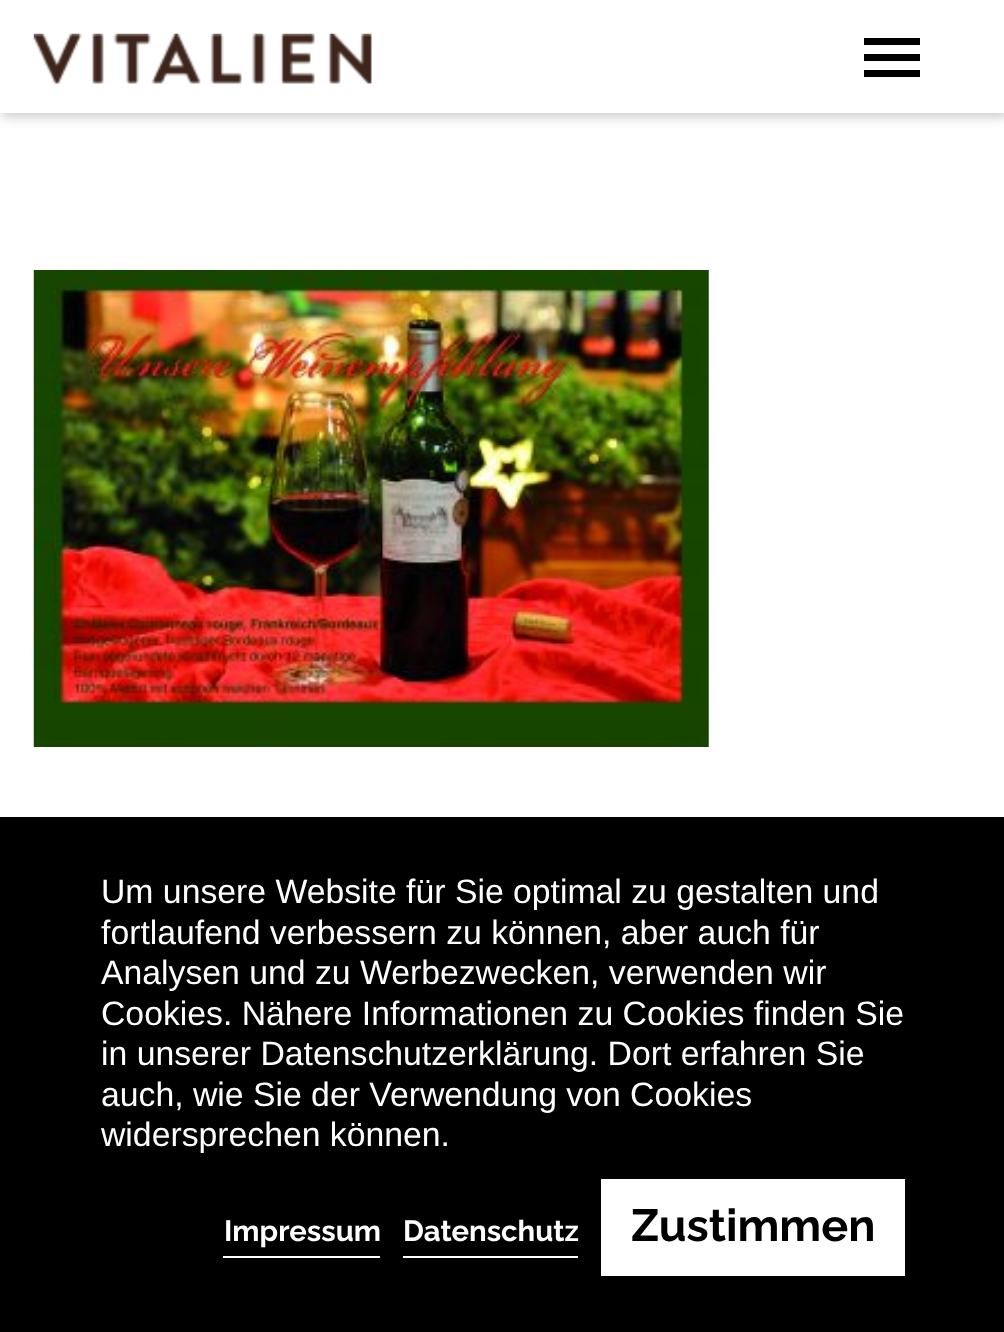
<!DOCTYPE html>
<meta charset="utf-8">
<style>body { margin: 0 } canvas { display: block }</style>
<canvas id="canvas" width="1004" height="1332"></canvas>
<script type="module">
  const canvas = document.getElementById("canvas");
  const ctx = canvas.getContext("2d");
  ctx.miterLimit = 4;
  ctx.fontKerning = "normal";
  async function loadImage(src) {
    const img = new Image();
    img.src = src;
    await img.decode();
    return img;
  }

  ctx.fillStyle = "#ffffff";
  ctx.fillRect(0, 0, 1004, 1332);
  ctx.save();
  ctx.beginPath();
  ctx.moveTo(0, 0);
  ctx.lineTo(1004, 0);
  ctx.lineTo(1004, 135);
  ctx.lineTo(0, 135);
  ctx.closePath();
  ctx.moveTo(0, 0);
  ctx.lineTo(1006, 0);
  ctx.lineTo(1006, 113);
  ctx.lineTo(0, 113);
  ctx.closePath();
  ctx.clip("evenodd");
  ctx.fillStyle = "rgba(0, 0, 0, 0.2)";
  ctx.filter = "blur(5.5px)";
  ctx.beginPath();
  ctx.rect(2, 5, 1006, 112);
  ctx.fill();
  ctx.filter = "none";
  ctx.restore();
  ctx.fillStyle = "rgba(255, 255, 255, 0.95)";
  ctx.fillRect(0, 112, 1004, 1);
  ctx.drawImage(await loadImage("img1.png"), 33, 33, 339, 51);
  ctx.fillStyle = "#000000";
  ctx.fillRect(864, 38, 56, 7);
  ctx.fillRect(864, 54, 56, 7);
  ctx.fillRect(864, 70, 56, 7);
  ctx.drawImage(await loadImage("img2.png"), 33, 270, 676, 477);
  ctx.fillRect(0, 817, 1004, 515);
  ctx.font = "33.75px Liberation Sans";
  ctx.fillStyle = "#ffffff";
  ctx.fillText("Um unsere Website für Sie optimal zu gestalten und", 101, 903);
  ctx.fillText("fortlaufend verbessern zu können, aber auch für", 101, 944);
  ctx.fillText("Analysen und zu Werbezwecken, verwenden wir", 101, 984);
  ctx.fillText("Cookies. Nähere Informationen zu Cookies finden Sie", 101, 1025);
  ctx.fillText("in unserer Datenschutzerklärung. Dort erfahren Sie", 101, 1065);
  ctx.fillText("auch, wie Sie der Verwendung von Cookies", 101, 1106);
  ctx.fillText("widersprechen können.", 101, 1146);
  ctx.fillRect(223, 1256, 157, 2);
  ctx.font = "bold 29.25px Raleway";
  ctx.fillText("Impressum", 224, 1241);
  ctx.fillRect(403, 1256, 175, 2);
  ctx.fillText("Datenschutz", 403, 1241);
  ctx.fillRect(601, 1179, 304, 97);
  ctx.font = "bold 45px Raleway";
  ctx.fillStyle = "#000000";
  ctx.fillText("Zustimmen", 631, 1241);
</script>
